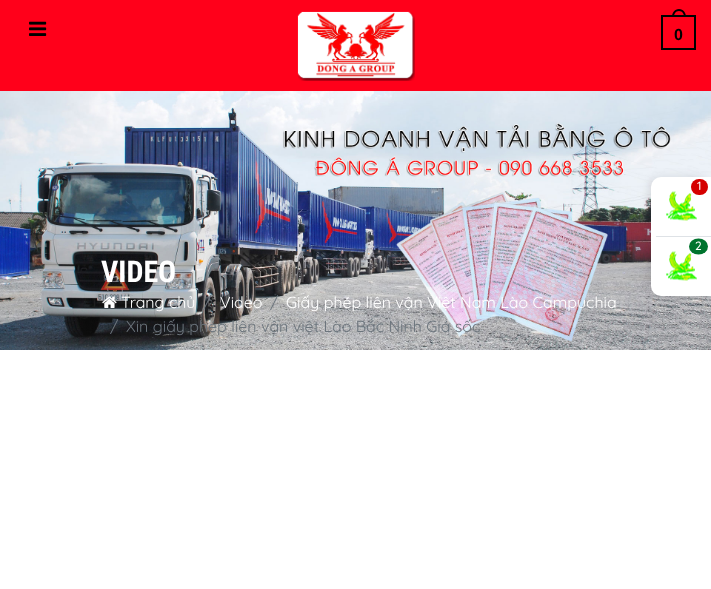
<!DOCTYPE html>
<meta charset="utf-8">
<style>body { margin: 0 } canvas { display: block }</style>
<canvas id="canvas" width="711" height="589"></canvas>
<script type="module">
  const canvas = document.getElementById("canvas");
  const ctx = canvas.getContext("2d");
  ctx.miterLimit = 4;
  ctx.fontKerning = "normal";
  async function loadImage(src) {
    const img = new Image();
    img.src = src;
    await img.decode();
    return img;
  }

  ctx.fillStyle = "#ffffff";
  ctx.fillRect(0, 0, 711, 589);
  ctx.fillStyle = "#ff001a";
  ctx.fillRect(0, 0, 711, 91);
  ctx.drawImage(await loadImage("img1.png"), 29, 21, 18, 15);
  ctx.drawImage(await loadImage("img2.png"), 297, 11, 118, 70);
  ctx.strokeStyle = "#000000";
  ctx.lineWidth = 2;
  ctx.strokeRect(662, 16, 33, 33);
  ctx.fillStyle = "#000000";
  ctx.beginPath();
  ctx.moveTo(679, 9);
  ctx.bezierCurveTo(683.5, 9, 686, 13, 686, 17);
  ctx.lineTo(672, 17);
  ctx.bezierCurveTo(672, 13, 674.5, 9, 679, 9);
  ctx.closePath();
  ctx.moveTo(679, 11);
  ctx.bezierCurveTo(682.5, 11, 684, 14, 684, 17);
  ctx.lineTo(674, 17);
  ctx.bezierCurveTo(674, 14, 675.5, 11, 679, 11);
  ctx.closePath();
  ctx.fill("evenodd");
  ctx.font = "bold 16px Liberation Sans";
  ctx.fillText("0", 674, 40);
  ctx.drawImage(await loadImage("img4.png"), 0, 91, 711, 259);
  ctx.fillStyle = "rgba(0, 0, 0, 0.1)";
  ctx.filter = "blur(5px)";
  ctx.beginPath();
  ctx.roundRect(649, 177, 60, 119, 10);
  ctx.fill();
  ctx.filter = "none";
  ctx.fillStyle = "#ffffff";
  ctx.beginPath();
  ctx.roundRect(651, 177, 60, 119, [10, 0, 0, 10]);
  ctx.fill();
  ctx.fillStyle = "#dee2e6";
  ctx.fillRect(656, 236, 55, 1);
  ctx.drawImage(await loadImage("img3.png"), 666, 191, 31, 30);
  ctx.fillStyle = "#d50000";
  ctx.beginPath();
  ctx.roundRect(691, 179, 17, 16, 8);
  ctx.fill();
  ctx.font = "500 12px Quicksand";
  ctx.fillStyle = "#ffffff";
  ctx.fillText("1", 697, 190);
  ctx.drawImage(await loadImage("img3.png"), 666, 251, 31, 30);
  ctx.fillStyle = "#00742e";
  ctx.beginPath();
  ctx.ellipse(698.5, 246.5, 9.5, 8, 0, 0, Math.PI * 2);
  ctx.fill();
  ctx.fillStyle = "#ffffff";
  ctx.fillText("2", 695, 250);
  ctx.font = "bold 30px Roboto Condensed";
  ctx.fillText("VIDEO", 101, 282);
  ctx.drawImage(await loadImage("img5.png"), 102, 296, 15, 12);
  ctx.font = "16px Quicksand";
  ctx.fillText("Trang chủ", 121, 308);
  ctx.fillStyle = "#6c757d";
  ctx.fillText("/", 203, 308);
  ctx.fillStyle = "#ffffff";
  ctx.fillText("Video", 220, 308);
  ctx.fillStyle = "#6c757d";
  ctx.fillText("/", 270, 308);
  ctx.fillStyle = "#ffffff";
  ctx.fillText("Giấy phép liên vận Việt Nam Lào Campuchia", 286, 308);
  ctx.fillStyle = "#6c757d";
  ctx.fillText("/", 110, 332);
  ctx.fillText("Xin giấy phép liên vận việt Lào Bắc Ninh Giá sốc", 126, 332);
</script>
